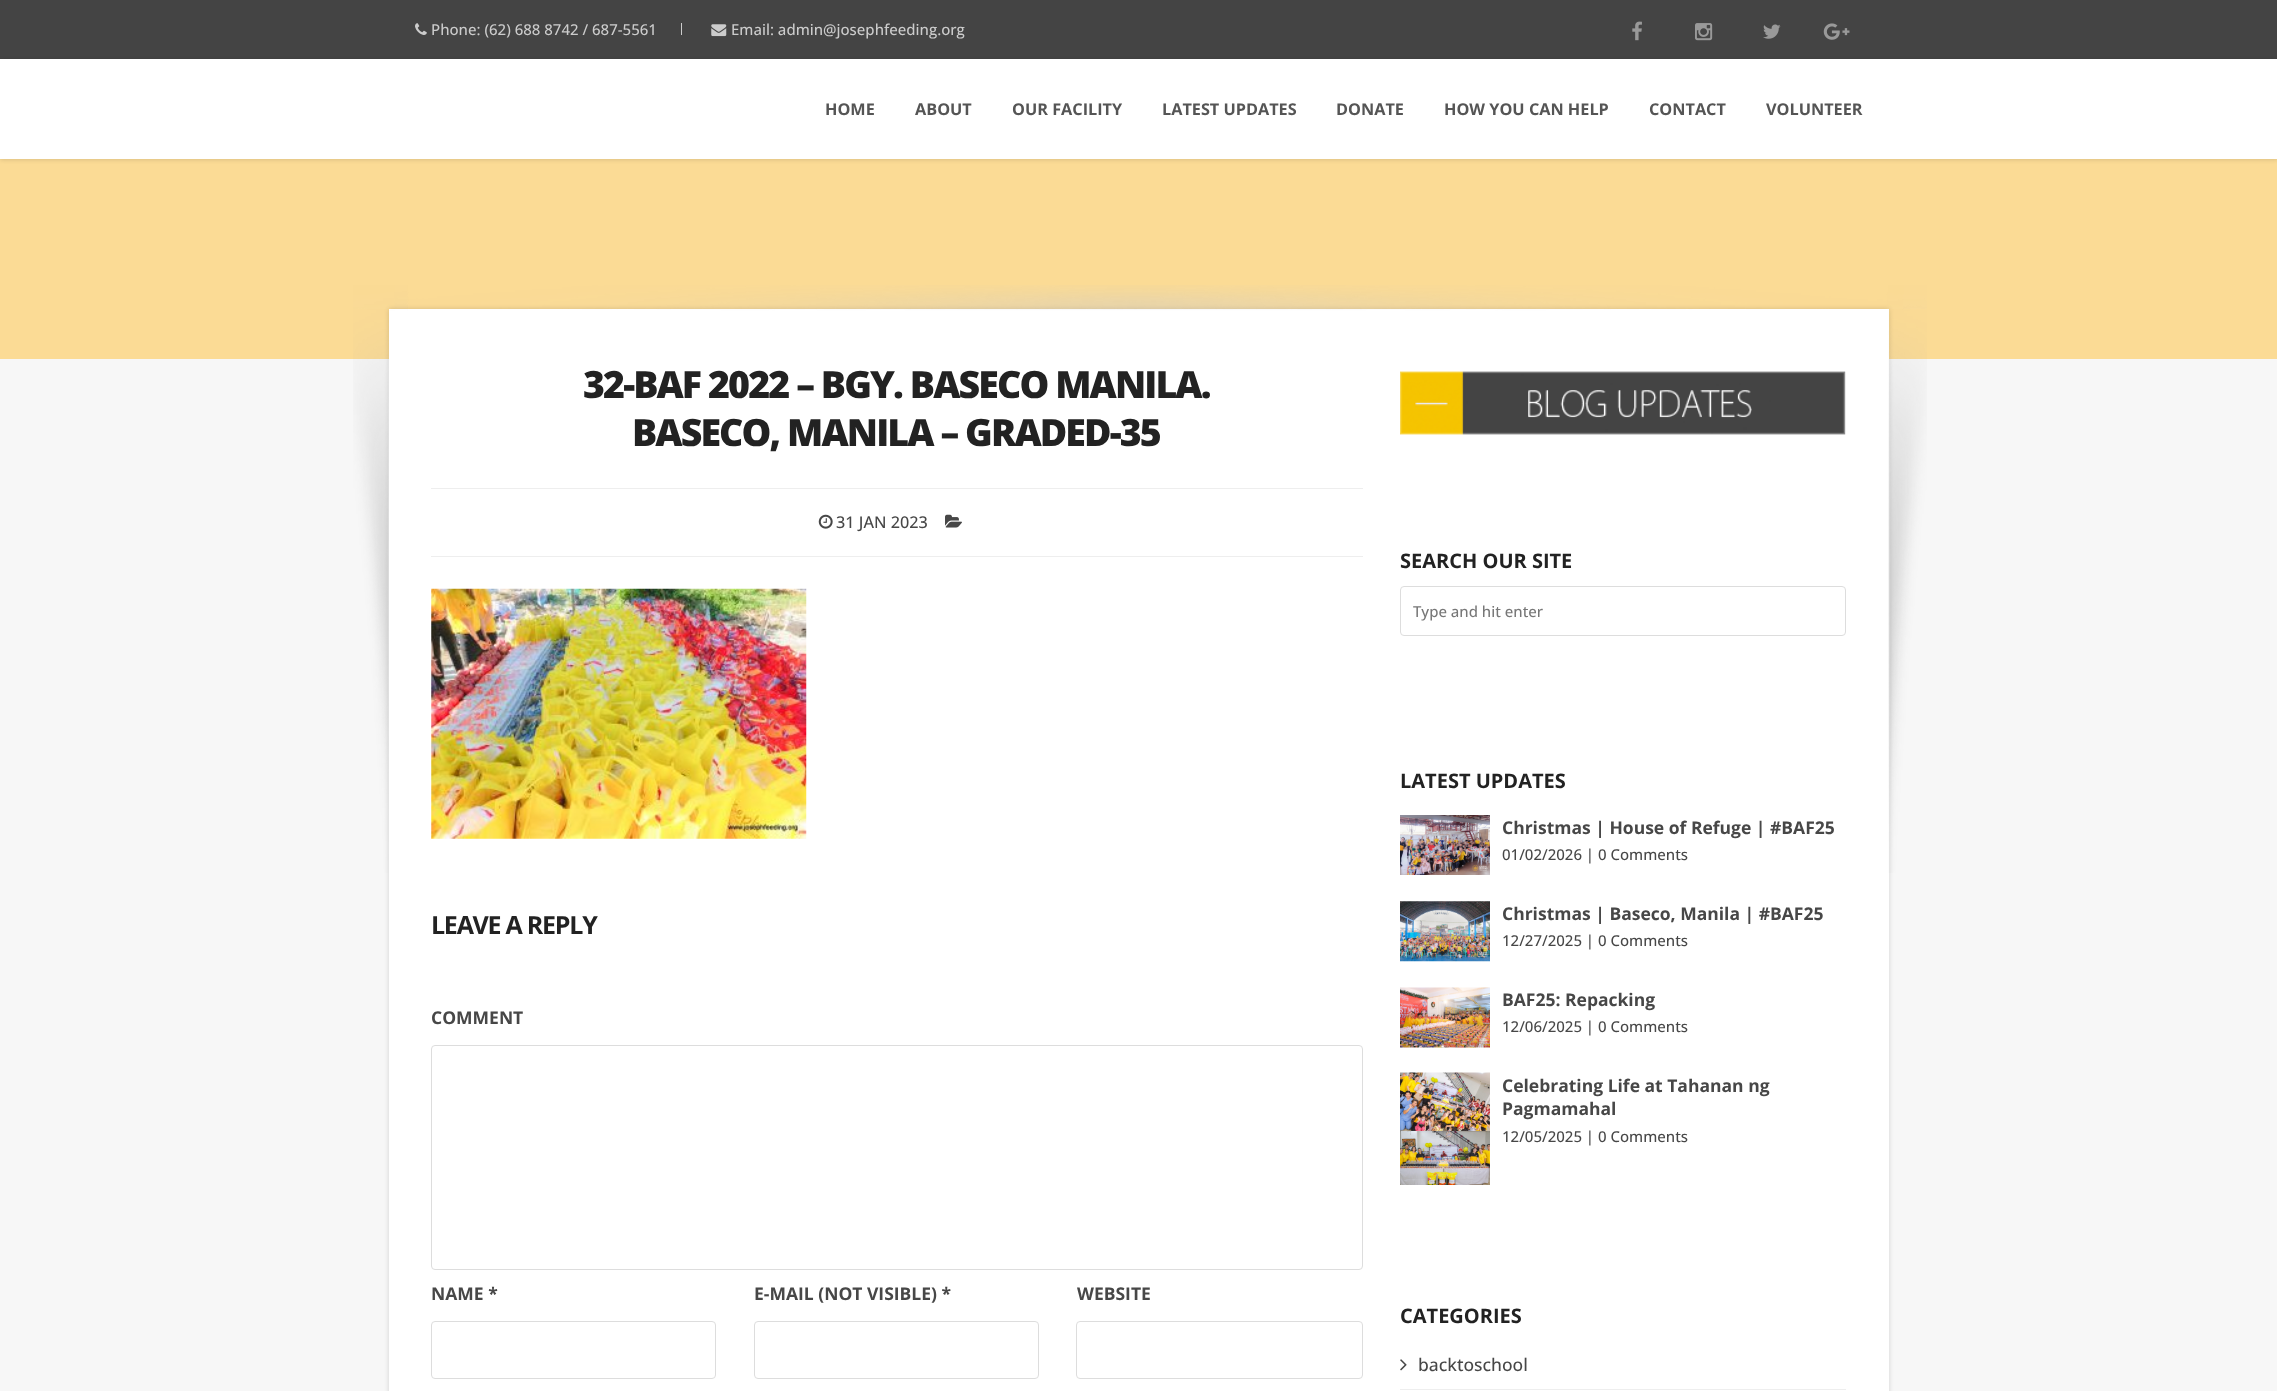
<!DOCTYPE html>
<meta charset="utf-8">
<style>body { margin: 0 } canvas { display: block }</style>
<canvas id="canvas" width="2277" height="1391"></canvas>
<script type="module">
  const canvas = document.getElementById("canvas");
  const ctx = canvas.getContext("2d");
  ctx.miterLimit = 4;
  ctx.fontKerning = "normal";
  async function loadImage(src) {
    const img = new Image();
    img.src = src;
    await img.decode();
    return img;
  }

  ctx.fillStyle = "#f7f7f7";
  ctx.fillRect(0, 0, 2277, 1391);
  ctx.fillStyle = "#444444";
  ctx.fillRect(0, 0, 2277, 59);
  ctx.drawImage(await loadImage("img1.png"), 415, 23, 12, 12);
  ctx.font = "500 15px Open Sans";
  ctx.fillStyle = "#cccccc";
  ctx.fillText("Phone: (62) 688 8742 / 687-5561", 431, 35);
  ctx.fillRect(681, 23, 1, 12);
  ctx.drawImage(await loadImage("img2.png"), 711, 24, 16, 13);
  ctx.fillText("Email: admin@josephfeeding.org", 731, 35);
  ctx.drawImage(await loadImage("img3.png"), 1632, 21, 10, 20);
  ctx.drawImage(await loadImage("img4.png"), 1695, 23, 18, 18);
  ctx.drawImage(await loadImage("img5.png"), 1763, 24, 18, 15);
  ctx.drawImage(await loadImage("img6.png"), 1823, 23, 27, 17);
  ctx.fillStyle = "#fbdb95";
  ctx.fillRect(0, 159, 2277, 200);
  ctx.fillStyle = "rgba(0, 0, 0, 0.12)";
  ctx.filter = "blur(2px)";
  ctx.beginPath();
  ctx.rect(0, 60, 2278, 100);
  ctx.fill();
  ctx.filter = "none";
  ctx.fillStyle = "#ffffff";
  ctx.fillRect(0, 59, 2277, 100);
  ctx.font = "bold 16.25px Open Sans";
  ctx.fillStyle = "#555555";
  ctx.fillText("HOME", 825, 115);
  ctx.fillText("ABOUT", 915, 115);
  ctx.fillText("OUR FACILITY", 1012, 115);
  ctx.fillText("LATEST UPDATES", 1162, 115);
  ctx.fillText("DONATE", 1336, 115);
  ctx.fillText("HOW YOU CAN HELP", 1444, 115);
  ctx.fillText("CONTACT", 1649, 115);
  ctx.fillText("VOLUNTEER", 1766, 115);
  ctx.fillStyle = "rgba(0, 0, 0, 0.15)";
  ctx.filter = "blur(2.5px)";
  ctx.beginPath();
  ctx.rect(389, 309, 1500, 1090);
  ctx.fill();
  ctx.filter = "none";
  ctx.fillStyle = "#ffffff";
  ctx.fillRect(389, 309, 1500, 1082);
  ctx.drawImage(await loadImage("img7.png"), 353, 285, 1574, 588);
  ctx.letterSpacing = "-1.9px";
  ctx.font = "800 37.5px Open Sans";
  ctx.fillStyle = "#222222";
  ctx.fillText("32-BAF 2022 – BGY. BASECO MANILA.", 583, 398);
  ctx.fillText("BASECO, MANILA – GRADED-35", 632, 446);
  ctx.fillStyle = "#eeeeee";
  ctx.fillRect(431, 488, 932, 1);
  ctx.fillRect(431, 556, 932, 1);
  ctx.drawImage(await loadImage("img8.png"), 818, 514, 15, 15);
  ctx.letterSpacing = "0px";
  ctx.font = "500 16.25px Open Sans";
  ctx.fillStyle = "#474747";
  ctx.fillText("31 JAN 2023", 836, 528);
  ctx.drawImage(await loadImage("img9.png"), 945, 514, 17, 14);
  ctx.drawImage(await loadImage("img10.png"), 431, 588, 376, 251);
  ctx.letterSpacing = "-1.25px";
  ctx.font = "bold 25px Open Sans";
  ctx.fillStyle = "#222222";
  ctx.fillText("LEAVE A REPLY", 431, 934);
  ctx.letterSpacing = "0px";
  ctx.font = "bold 17.5px Open Sans";
  ctx.fillStyle = "#474747";
  ctx.fillText("COMMENT", 431, 1024);
  ctx.beginPath();
  ctx.roundRect(431.5, 1045.5, 931, 224, 3.5);
  ctx.strokeStyle = "#dddddd";
  ctx.stroke();
  ctx.fillText("NAME *", 431, 1300);
  ctx.beginPath();
  ctx.roundRect(431.5, 1321.5, 284, 57, 3.5);
  ctx.stroke();
  ctx.fillText("E-MAIL (NOT VISIBLE) *", 754, 1300);
  ctx.beginPath();
  ctx.roundRect(754.5, 1321.5, 284, 57, 3.5);
  ctx.stroke();
  ctx.fillText("WEBSITE", 1077, 1300);
  ctx.beginPath();
  ctx.roundRect(1076.5, 1321.5, 286, 57, 3.5);
  ctx.stroke();
  ctx.drawImage(await loadImage("img11.png"), 1400, 371, 446, 64);
  ctx.font = "bold 20px Open Sans";
  ctx.fillStyle = "#222222";
  ctx.fillText("SEARCH OUR SITE", 1400, 568);
  ctx.beginPath();
  ctx.roundRect(1400.5, 586.5, 445, 49, 3.5);
  ctx.stroke();
  ctx.font = "500 15px Open Sans";
  ctx.fillStyle = "#777777";
  ctx.fillText("Type and hit enter", 1413, 617);
  ctx.font = "bold 20px Open Sans";
  ctx.fillStyle = "#222222";
  ctx.fillText("LATEST UPDATES", 1400, 788);
  ctx.drawImage(await loadImage("img12.png"), 1400, 815, 90, 60);
  ctx.font = "bold 17.5px Open Sans";
  ctx.fillStyle = "#474747";
  ctx.fillText("Christmas | House of Refuge | #BAF25", 1502, 834);
  ctx.font = "500 15px Open Sans";
  ctx.fillText("01/02/2026 | 0 Comments", 1502, 860);
  ctx.drawImage(await loadImage("img13.png"), 1400, 901, 90, 61);
  ctx.font = "bold 17.5px Open Sans";
  ctx.fillText("Christmas | Baseco, Manila | #BAF25", 1502, 920);
  ctx.font = "500 15px Open Sans";
  ctx.fillText("12/27/2025 | 0 Comments", 1502, 946);
  ctx.drawImage(await loadImage("img14.png"), 1400, 987, 90, 61);
  ctx.font = "bold 17.5px Open Sans";
  ctx.fillText("BAF25: Repacking", 1502, 1006);
  ctx.font = "500 15px Open Sans";
  ctx.fillText("12/06/2025 | 0 Comments", 1502, 1032);
  ctx.drawImage(await loadImage("img15.png"), 1400, 1072, 90, 113);
  ctx.font = "bold 17.5px Open Sans";
  ctx.fillText("Celebrating Life at Tahanan ng", 1502, 1092);
  ctx.fillText("Pagmamahal", 1502, 1115);
  ctx.font = "500 15px Open Sans";
  ctx.fillText("12/05/2025 | 0 Comments", 1502, 1142);
  ctx.font = "bold 20px Open Sans";
  ctx.fillStyle = "#222222";
  ctx.fillText("CATEGORIES", 1400, 1323);
  ctx.fillStyle = "#eeeeee";
  ctx.fillRect(1400, 1389, 446, 1);
  ctx.drawImage(await loadImage("img16.png"), 1400, 1359, 7, 12);
  ctx.font = "500 17.5px Open Sans";
  ctx.fillStyle = "#474747";
  ctx.fillText("backtoschool", 1418, 1371);
</script>
